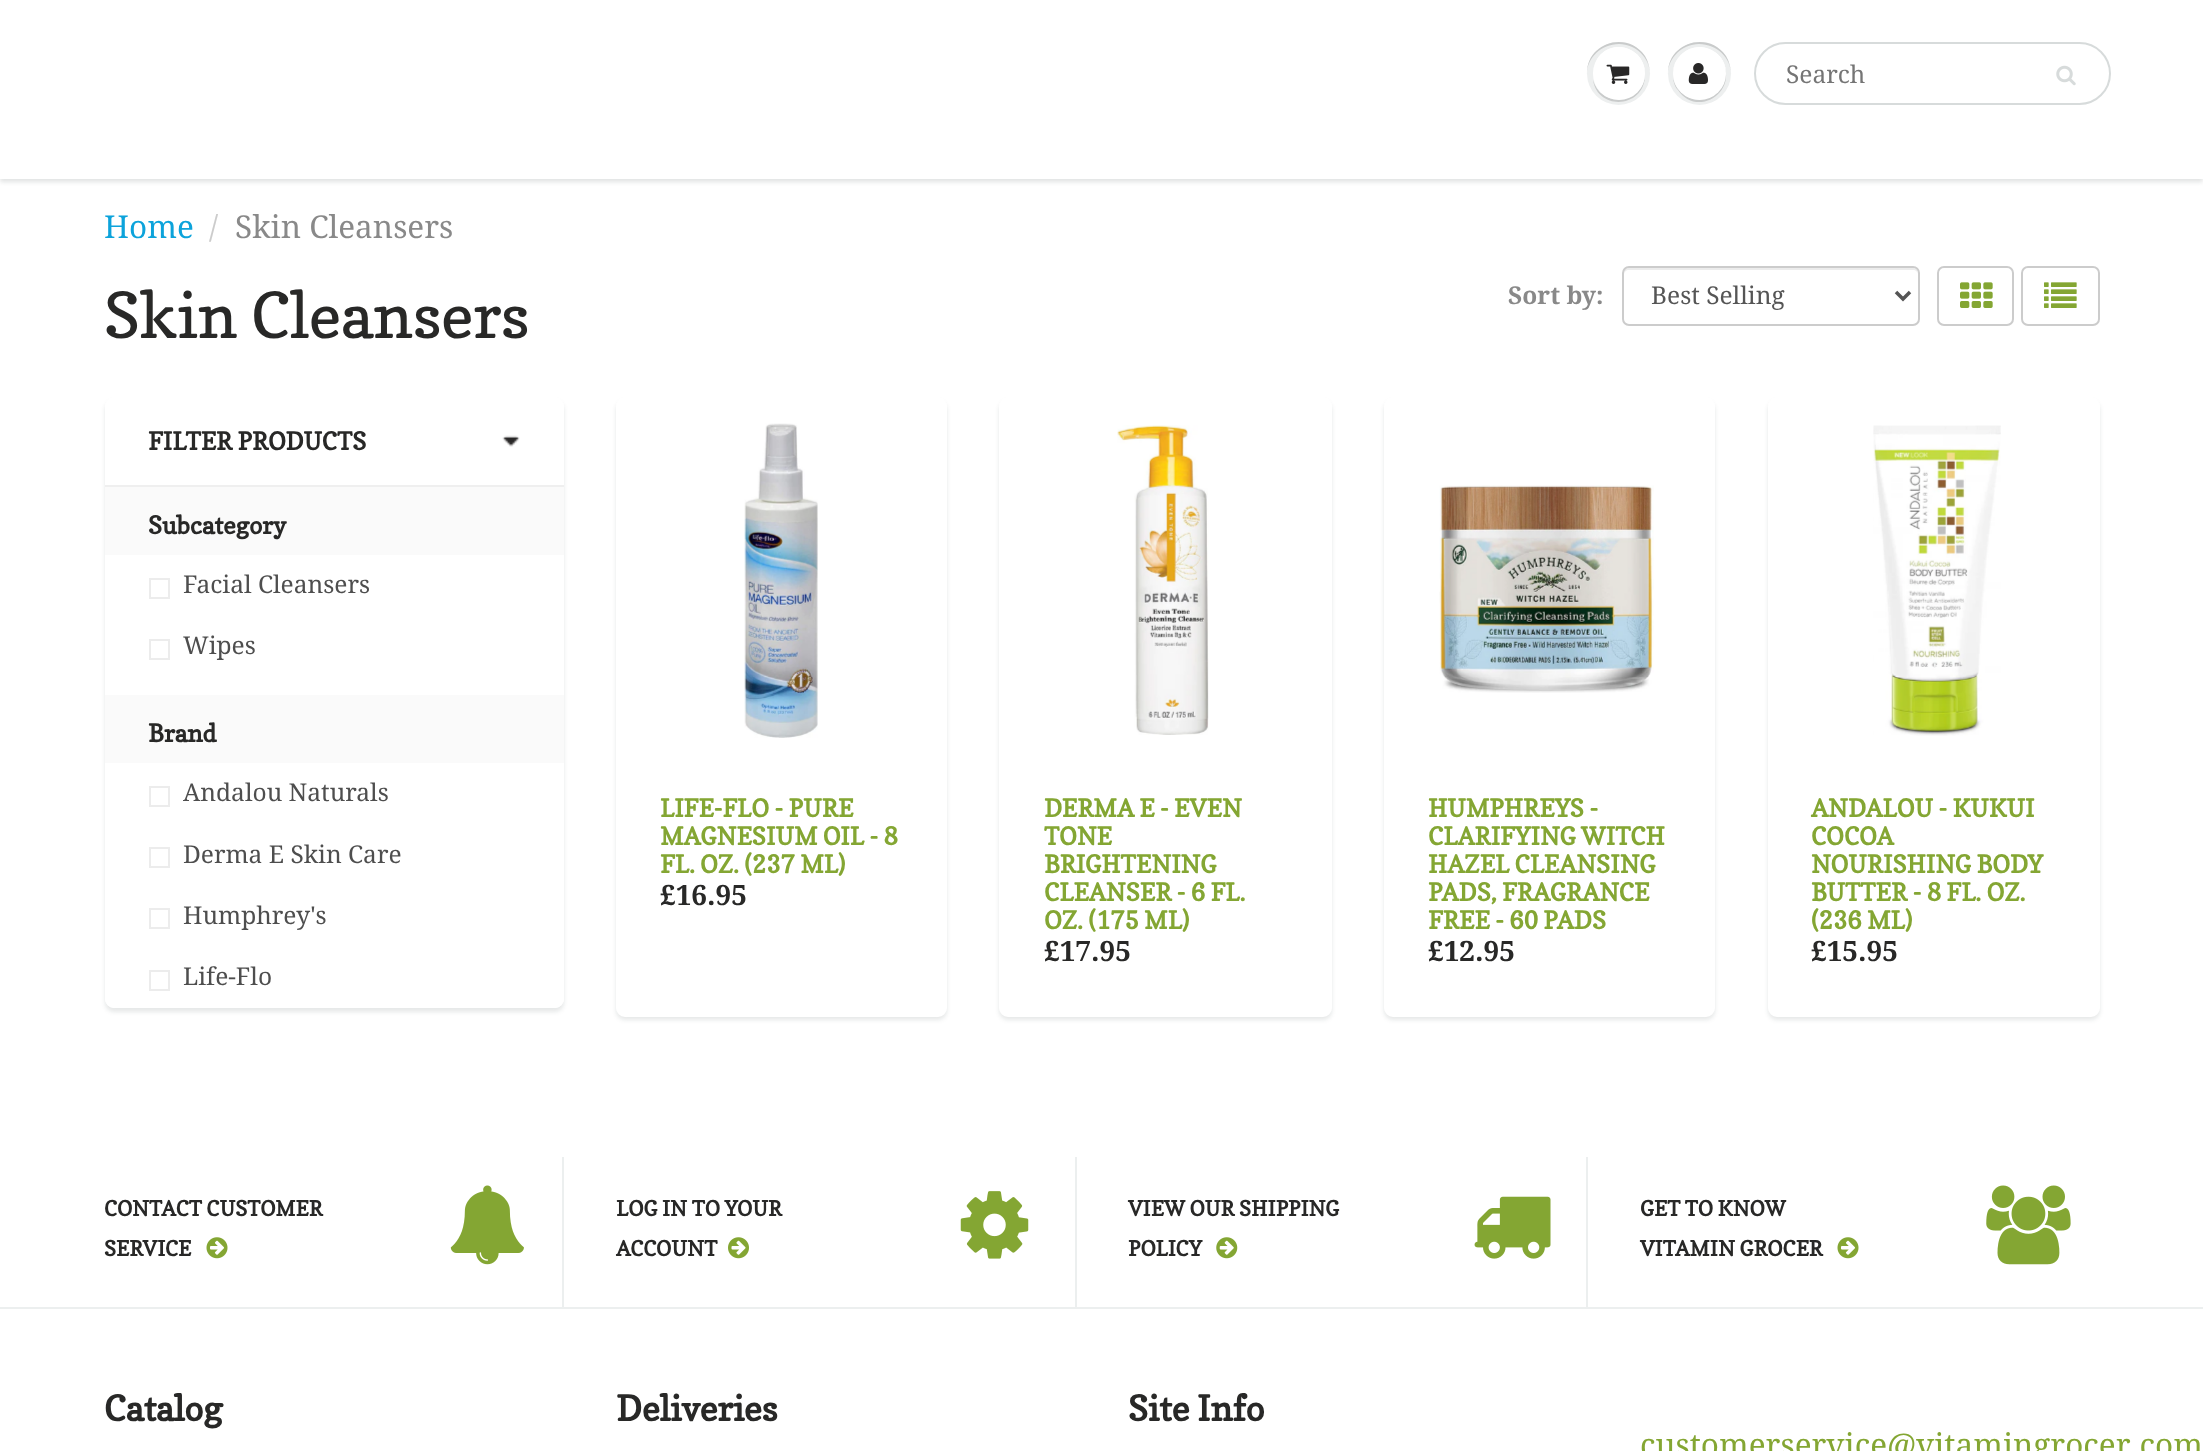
<!DOCTYPE html>
<meta charset="utf-8">
<style>body { margin: 0 } canvas { display: block }</style>
<canvas id="canvas" width="2203" height="1451"></canvas>
<script type="module">
  const canvas = document.getElementById("canvas");
  const ctx = canvas.getContext("2d");
  ctx.miterLimit = 4;
  ctx.fontKerning = "normal";
  async function loadImage(src) {
    const img = new Image();
    img.src = src;
    await img.decode();
    return img;
  }

  ctx.fillStyle = "#ffffff";
  ctx.fillRect(0, 0, 2203, 1451);
  ctx.fillStyle = "rgba(11, 25, 28, 0.12)";
  ctx.filter = "blur(2px)";
  ctx.beginPath();
  ctx.rect(0, -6, 2203, 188);
  ctx.fill();
  ctx.filter = "none";
  ctx.fillStyle = "#ffffff";
  ctx.fillRect(0, 0, 2203, 179);
  ctx.fillStyle = "#edefef";
  ctx.beginPath();
  ctx.arc(1618.5, 73.5, 31.5, 0, Math.PI * 2);
  ctx.fill();
  ctx.fillStyle = "#c9cbcb";
  ctx.beginPath();
  ctx.moveTo(1619, 44);
  ctx.bezierCurveTo(1636, 44, 1650, 58, 1650, 74);
  ctx.bezierCurveTo(1650, 68, 1648, 61, 1645, 56);
  ctx.bezierCurveTo(1627, 30, 1586, 43, 1587, 74);
  ctx.bezierCurveTo(1587, 58, 1601, 44, 1619, 44);
  ctx.closePath();
  ctx.moveTo(1593, 80);
  ctx.bezierCurveTo(1598, 112, 1646, 108, 1645, 74);
  ctx.bezierCurveTo(1644, 104, 1601, 109, 1593, 80);
  ctx.closePath();
  ctx.fill();
  ctx.fillStyle = "#ffffff";
  ctx.beginPath();
  ctx.roundRect(1593, 47, 52, 53, 26);
  ctx.fill();
  ctx.beginPath();
  ctx.moveTo(1619, 49);
  ctx.bezierCurveTo(1633, 49, 1645, 61, 1645, 75);
  ctx.bezierCurveTo(1646, 45, 1605, 36, 1595, 64);
  ctx.bezierCurveTo(1599, 55, 1608, 49, 1619, 49);
  ctx.closePath();
  ctx.fill();
  ctx.drawImage(await loadImage("img1.png"), 1606, 64, 24, 20);
  ctx.fillStyle = "#edefef";
  ctx.beginPath();
  ctx.arc(1699.5, 73.5, 31.5, 0, Math.PI * 2);
  ctx.fill();
  ctx.fillStyle = "#c9cbcb";
  ctx.beginPath();
  ctx.moveTo(1699, 44);
  ctx.bezierCurveTo(1717, 44, 1731, 58, 1731, 74);
  ctx.bezierCurveTo(1731, 68, 1729, 61, 1726, 56);
  ctx.bezierCurveTo(1708, 30, 1667, 43, 1668, 74);
  ctx.bezierCurveTo(1668, 58, 1682, 44, 1699, 44);
  ctx.closePath();
  ctx.fill();
  ctx.beginPath();
  ctx.moveTo(1673, 74);
  ctx.bezierCurveTo(1673, 80, 1674, 86, 1678, 90);
  ctx.bezierCurveTo(1695, 116, 1733, 96, 1725, 68);
  ctx.bezierCurveTo(1730, 93, 1700, 110, 1681, 92);
  ctx.bezierCurveTo(1676, 88, 1673, 81, 1673, 74);
  ctx.closePath();
  ctx.fill();
  ctx.fillStyle = "#ffffff";
  ctx.beginPath();
  ctx.arc(1699.5, 73.5, 26.5, 0, Math.PI * 2);
  ctx.fill();
  ctx.beginPath();
  ctx.moveTo(1699, 49);
  ctx.bezierCurveTo(1714, 49, 1726, 61, 1726, 74);
  ctx.bezierCurveTo(1727, 48, 1692, 37, 1678, 59);
  ctx.bezierCurveTo(1674, 63, 1673, 69, 1673, 74);
  ctx.bezierCurveTo(1673, 61, 1685, 49, 1699, 49);
  ctx.closePath();
  ctx.fill();
  ctx.drawImage(await loadImage("img2.png"), 1688, 63, 20, 21);
  ctx.beginPath();
  ctx.roundRect(1755, 43, 355, 61, 30.5);
  ctx.strokeStyle = "#d7dbdb";
  ctx.lineWidth = 2;
  ctx.stroke();
  ctx.font = "24.5px Droid Serif";
  ctx.fillStyle = "#757575";
  ctx.fillText("Search", 1786, 83);
  ctx.drawImage(await loadImage("img3.png"), 2056, 65, 20, 21);
  ctx.font = "31.5px Droid Serif";
  ctx.fillStyle = "#0ca3db";
  ctx.fillText("Home", 104, 238);
  ctx.fillStyle = "#cccccc";
  ctx.fillText("/", 209, 238);
  ctx.fillStyle = "#898989";
  ctx.fillText("Skin Cleansers", 235, 238);
  ctx.fillStyle = "rgba(11, 25, 28, 0.1)";
  ctx.filter = "blur(2px)";
  ctx.beginPath();
  ctx.roundRect(105, 401, 459, 611, 9);
  ctx.fill();
  ctx.filter = "none";
  ctx.fillStyle = "#ffffff";
  ctx.beginPath();
  ctx.roundRect(105, 397, 459, 611, 9);
  ctx.fill();
  ctx.fillStyle = "#efefef";
  ctx.fillRect(105, 485, 459, 2);
  ctx.drawImage(await loadImage("img4.png"), 502, 435, 18, 12);
  ctx.font = "bold 24.5px Copse";
  ctx.fillStyle = "#282827";
  ctx.fillText("FILTER PRODUCTS", 148, 450);
  ctx.fillStyle = "#fafafa";
  ctx.fillRect(105, 487, 459, 68);
  ctx.fillStyle = "#282827";
  ctx.fillText("Subcategory", 148, 534);
  ctx.strokeStyle = "#ececec";
  ctx.strokeRect(150, 579, 19, 19);
  ctx.font = "24.5px Droid Serif";
  ctx.fillStyle = "#4e4e4e";
  ctx.fillText("Facial Cleansers", 183, 593);
  ctx.strokeRect(150, 640, 19, 19);
  ctx.fillText("Wipes", 183, 654);
  ctx.fillStyle = "#fafafa";
  ctx.fillRect(105, 695, 459, 68);
  ctx.font = "bold 24.5px Copse";
  ctx.fillStyle = "#282827";
  ctx.fillText("Brand", 148, 742);
  ctx.strokeRect(150, 787, 19, 19);
  ctx.font = "24.5px Droid Serif";
  ctx.fillStyle = "#4e4e4e";
  ctx.fillText("Andalou Naturals", 183, 801);
  ctx.strokeRect(150, 848, 19, 19);
  ctx.fillText("Derma E Skin Care", 183, 863);
  ctx.strokeRect(150, 909, 19, 19);
  ctx.fillText("Humphrey's", 183, 924);
  ctx.fillStyle = "#ffffff";
  ctx.beginPath();
  ctx.roundRect(105, 947, 459, 61, [0, 0, 9, 9]);
  ctx.fill();
  ctx.strokeRect(150, 971, 19, 19);
  ctx.fillStyle = "#4e4e4e";
  ctx.fillText("Life-Flo", 183, 985);
  ctx.font = "bold 24.5px Droid Serif";
  ctx.fillStyle = "#898989";
  ctx.fillText("Sort by:", 1508, 304);
  ctx.fillStyle = "#ececec";
  ctx.beginPath();
  ctx.moveTo(1629, 270);
  ctx.lineTo(1913, 270);
  ctx.bezierCurveTo(1916, 270, 1918, 272, 1918, 275);
  ctx.bezierCurveTo(1918, 272, 1917, 268, 1913, 268);
  ctx.lineTo(1628, 268);
  ctx.bezierCurveTo(1624, 269, 1624, 272, 1624, 275);
  ctx.bezierCurveTo(1624, 272, 1626, 270, 1629, 270);
  ctx.closePath();
  ctx.fill();
  ctx.beginPath();
  ctx.roundRect(1623, 267, 296, 58, 6);
  ctx.strokeStyle = "#cccccc";
  ctx.stroke();
  ctx.beginPath();
  ctx.moveTo(1896, 292);
  ctx.lineTo(1903, 299);
  ctx.lineTo(1910, 292);
  ctx.strokeStyle = "#555555";
  ctx.lineWidth = 3.5;
  ctx.stroke();
  ctx.font = "24.5px Droid Serif";
  ctx.fillStyle = "#555555";
  ctx.fillText("Best Selling", 1651, 304);
  ctx.beginPath();
  ctx.roundRect(1938, 267, 75, 58, 6);
  ctx.strokeStyle = "#cccccc";
  ctx.lineWidth = 2;
  ctx.stroke();
  ctx.drawImage(await loadImage("img5.png"), 1960, 282, 33, 26);
  ctx.beginPath();
  ctx.roundRect(2022, 267, 77, 58, 6);
  ctx.stroke();
  ctx.drawImage(await loadImage("img6.png"), 2044, 282, 33, 26);
  ctx.fillStyle = "rgba(11, 25, 28, 0.1)";
  ctx.filter = "blur(2px)";
  ctx.beginPath();
  ctx.roundRect(616, 401, 331, 619, 9);
  ctx.fill();
  ctx.filter = "none";
  ctx.fillStyle = "#ffffff";
  ctx.beginPath();
  ctx.roundRect(620.5, 401.5, 322, 611, 4.5);
  ctx.fill();
  ctx.strokeStyle = "#ffffff";
  ctx.lineWidth = 9;
  ctx.stroke();
  ctx.drawImage(await loadImage("img7.png"), 744, 423, 74, 315);
  ctx.font = "bold 24.5px Copse";
  ctx.fillStyle = "#84a633";
  ctx.fillText("LIFE-FLO - PURE", 660, 817);
  ctx.fillText("MAGNESIUM OIL - 8", 660, 845);
  ctx.fillText("FL. OZ. (237 ML)", 660, 873);
  ctx.font = "bold 28px Droid Serif";
  ctx.fillStyle = "#282827";
  ctx.fillText("£16.95", 660, 905);
  ctx.fillStyle = "rgba(11, 25, 28, 0.1)";
  ctx.filter = "blur(2px)";
  ctx.beginPath();
  ctx.roundRect(999, 401, 333, 619, 9);
  ctx.fill();
  ctx.filter = "none";
  ctx.fillStyle = "#ffffff";
  ctx.beginPath();
  ctx.roundRect(1003.5, 401.5, 324, 611, 4.5);
  ctx.fill();
  ctx.stroke();
  ctx.drawImage(await loadImage("img8.png"), 1117, 425, 92, 310);
  ctx.font = "bold 24.5px Copse";
  ctx.fillStyle = "#84a633";
  ctx.fillText("DERMA E - EVEN", 1044, 817);
  ctx.fillText("TONE", 1044, 845);
  ctx.fillText("BRIGHTENING", 1044, 873);
  ctx.fillText("CLEANSER - 6 FL.", 1044, 901);
  ctx.fillText("OZ. (175 ML)", 1044, 929);
  ctx.font = "bold 28px Droid Serif";
  ctx.fillStyle = "#282827";
  ctx.fillText("£17.95", 1044, 961);
  ctx.fillStyle = "rgba(11, 25, 28, 0.1)";
  ctx.filter = "blur(2px)";
  ctx.beginPath();
  ctx.roundRect(1384, 401, 331, 619, 9);
  ctx.fill();
  ctx.filter = "none";
  ctx.fillStyle = "#ffffff";
  ctx.beginPath();
  ctx.roundRect(1388.5, 401.5, 322, 611, 4.5);
  ctx.fill();
  ctx.stroke();
  ctx.drawImage(await loadImage("img9.png"), 1439, 485, 215, 208);
  ctx.font = "bold 24.5px Copse";
  ctx.fillStyle = "#84a633";
  ctx.fillText("HUMPHREYS -", 1428, 817);
  ctx.fillText("CLARIFYING WITCH", 1428, 845);
  ctx.fillText("HAZEL CLEANSING", 1428, 873);
  ctx.fillText("PADS, FRAGRANCE", 1428, 901);
  ctx.fillText("FREE - 60 PADS", 1428, 929);
  ctx.font = "bold 28px Droid Serif";
  ctx.fillStyle = "#282827";
  ctx.fillText("£12.95", 1428, 961);
  ctx.fillStyle = "rgba(11, 25, 28, 0.1)";
  ctx.filter = "blur(2px)";
  ctx.beginPath();
  ctx.roundRect(1768, 401, 332, 619, 9);
  ctx.fill();
  ctx.filter = "none";
  ctx.fillStyle = "#ffffff";
  ctx.beginPath();
  ctx.roundRect(1772.5, 401.5, 323, 611, 4.5);
  ctx.fill();
  ctx.stroke();
  ctx.drawImage(await loadImage("img10.png"), 1873, 425, 128, 311);
  ctx.font = "bold 24.5px Copse";
  ctx.fillStyle = "#84a633";
  ctx.fillText("ANDALOU - KUKUI", 1811, 817);
  ctx.fillText("COCOA", 1811, 845);
  ctx.fillText("NOURISHING BODY", 1811, 873);
  ctx.fillText("BUTTER - 8 FL. OZ.", 1811, 901);
  ctx.fillText("(236 ML)", 1811, 929);
  ctx.font = "bold 28px Droid Serif";
  ctx.fillStyle = "#282827";
  ctx.fillText("£15.95", 1811, 961);
  ctx.font = "63px Copse";
  ctx.fillText("Skin Cleansers", 104, 338);
  ctx.fillStyle = "#ecefef";
  ctx.fillRect(562, 1157, 2, 150);
  ctx.font = "bold 21px Copse";
  ctx.fillStyle = "#282827";
  ctx.fillText("CONTACT CUSTOMER", 104, 1216);
  ctx.fillText("SERVICE", 104, 1256);
  ctx.drawImage(await loadImage("img11.png"), 206, 1237, 22, 22);
  ctx.drawImage(await loadImage("img12.png"), 450, 1185, 74, 80);
  ctx.fillStyle = "#ecefef";
  ctx.fillRect(1075, 1157, 2, 150);
  ctx.fillStyle = "#282827";
  ctx.fillText("LOG IN TO YOUR", 616, 1216);
  ctx.fillText("ACCOUNT", 616, 1256);
  ctx.drawImage(await loadImage("img13.png"), 728, 1237, 21, 22);
  ctx.drawImage(await loadImage("img14.png"), 960, 1191, 69, 68);
  ctx.fillStyle = "#ecefef";
  ctx.fillRect(1586, 1157, 2, 150);
  ctx.fillStyle = "#282827";
  ctx.fillText("VIEW OUR SHIPPING", 1128, 1216);
  ctx.fillText("POLICY", 1128, 1256);
  ctx.drawImage(await loadImage("img15.png"), 1216, 1237, 22, 22);
  ctx.drawImage(await loadImage("img16.png"), 1474, 1196, 77, 63);
  ctx.fillText("GET TO KNOW", 1640, 1216);
  ctx.fillText("VITAMIN GROCER", 1640, 1256);
  ctx.drawImage(await loadImage("img11.png"), 1837, 1237, 22, 22);
  ctx.drawImage(await loadImage("img17.png"), 1986, 1185, 85, 80);
  ctx.fillStyle = "#ecefef";
  ctx.fillRect(0, 1307, 2203, 2);
  ctx.font = "bold 35px Copse";
  ctx.fillStyle = "#282827";
  ctx.fillText("Catalog", 104, 1421);
  ctx.fillText("Deliveries", 616, 1421);
  ctx.fillText("Site Info", 1128, 1421);
  ctx.font = "31.5px Droid Serif";
  ctx.fillStyle = "#84a633";
  ctx.fillText("customerservice@vitamingrocer.com", 1640, 1456);
</script>
